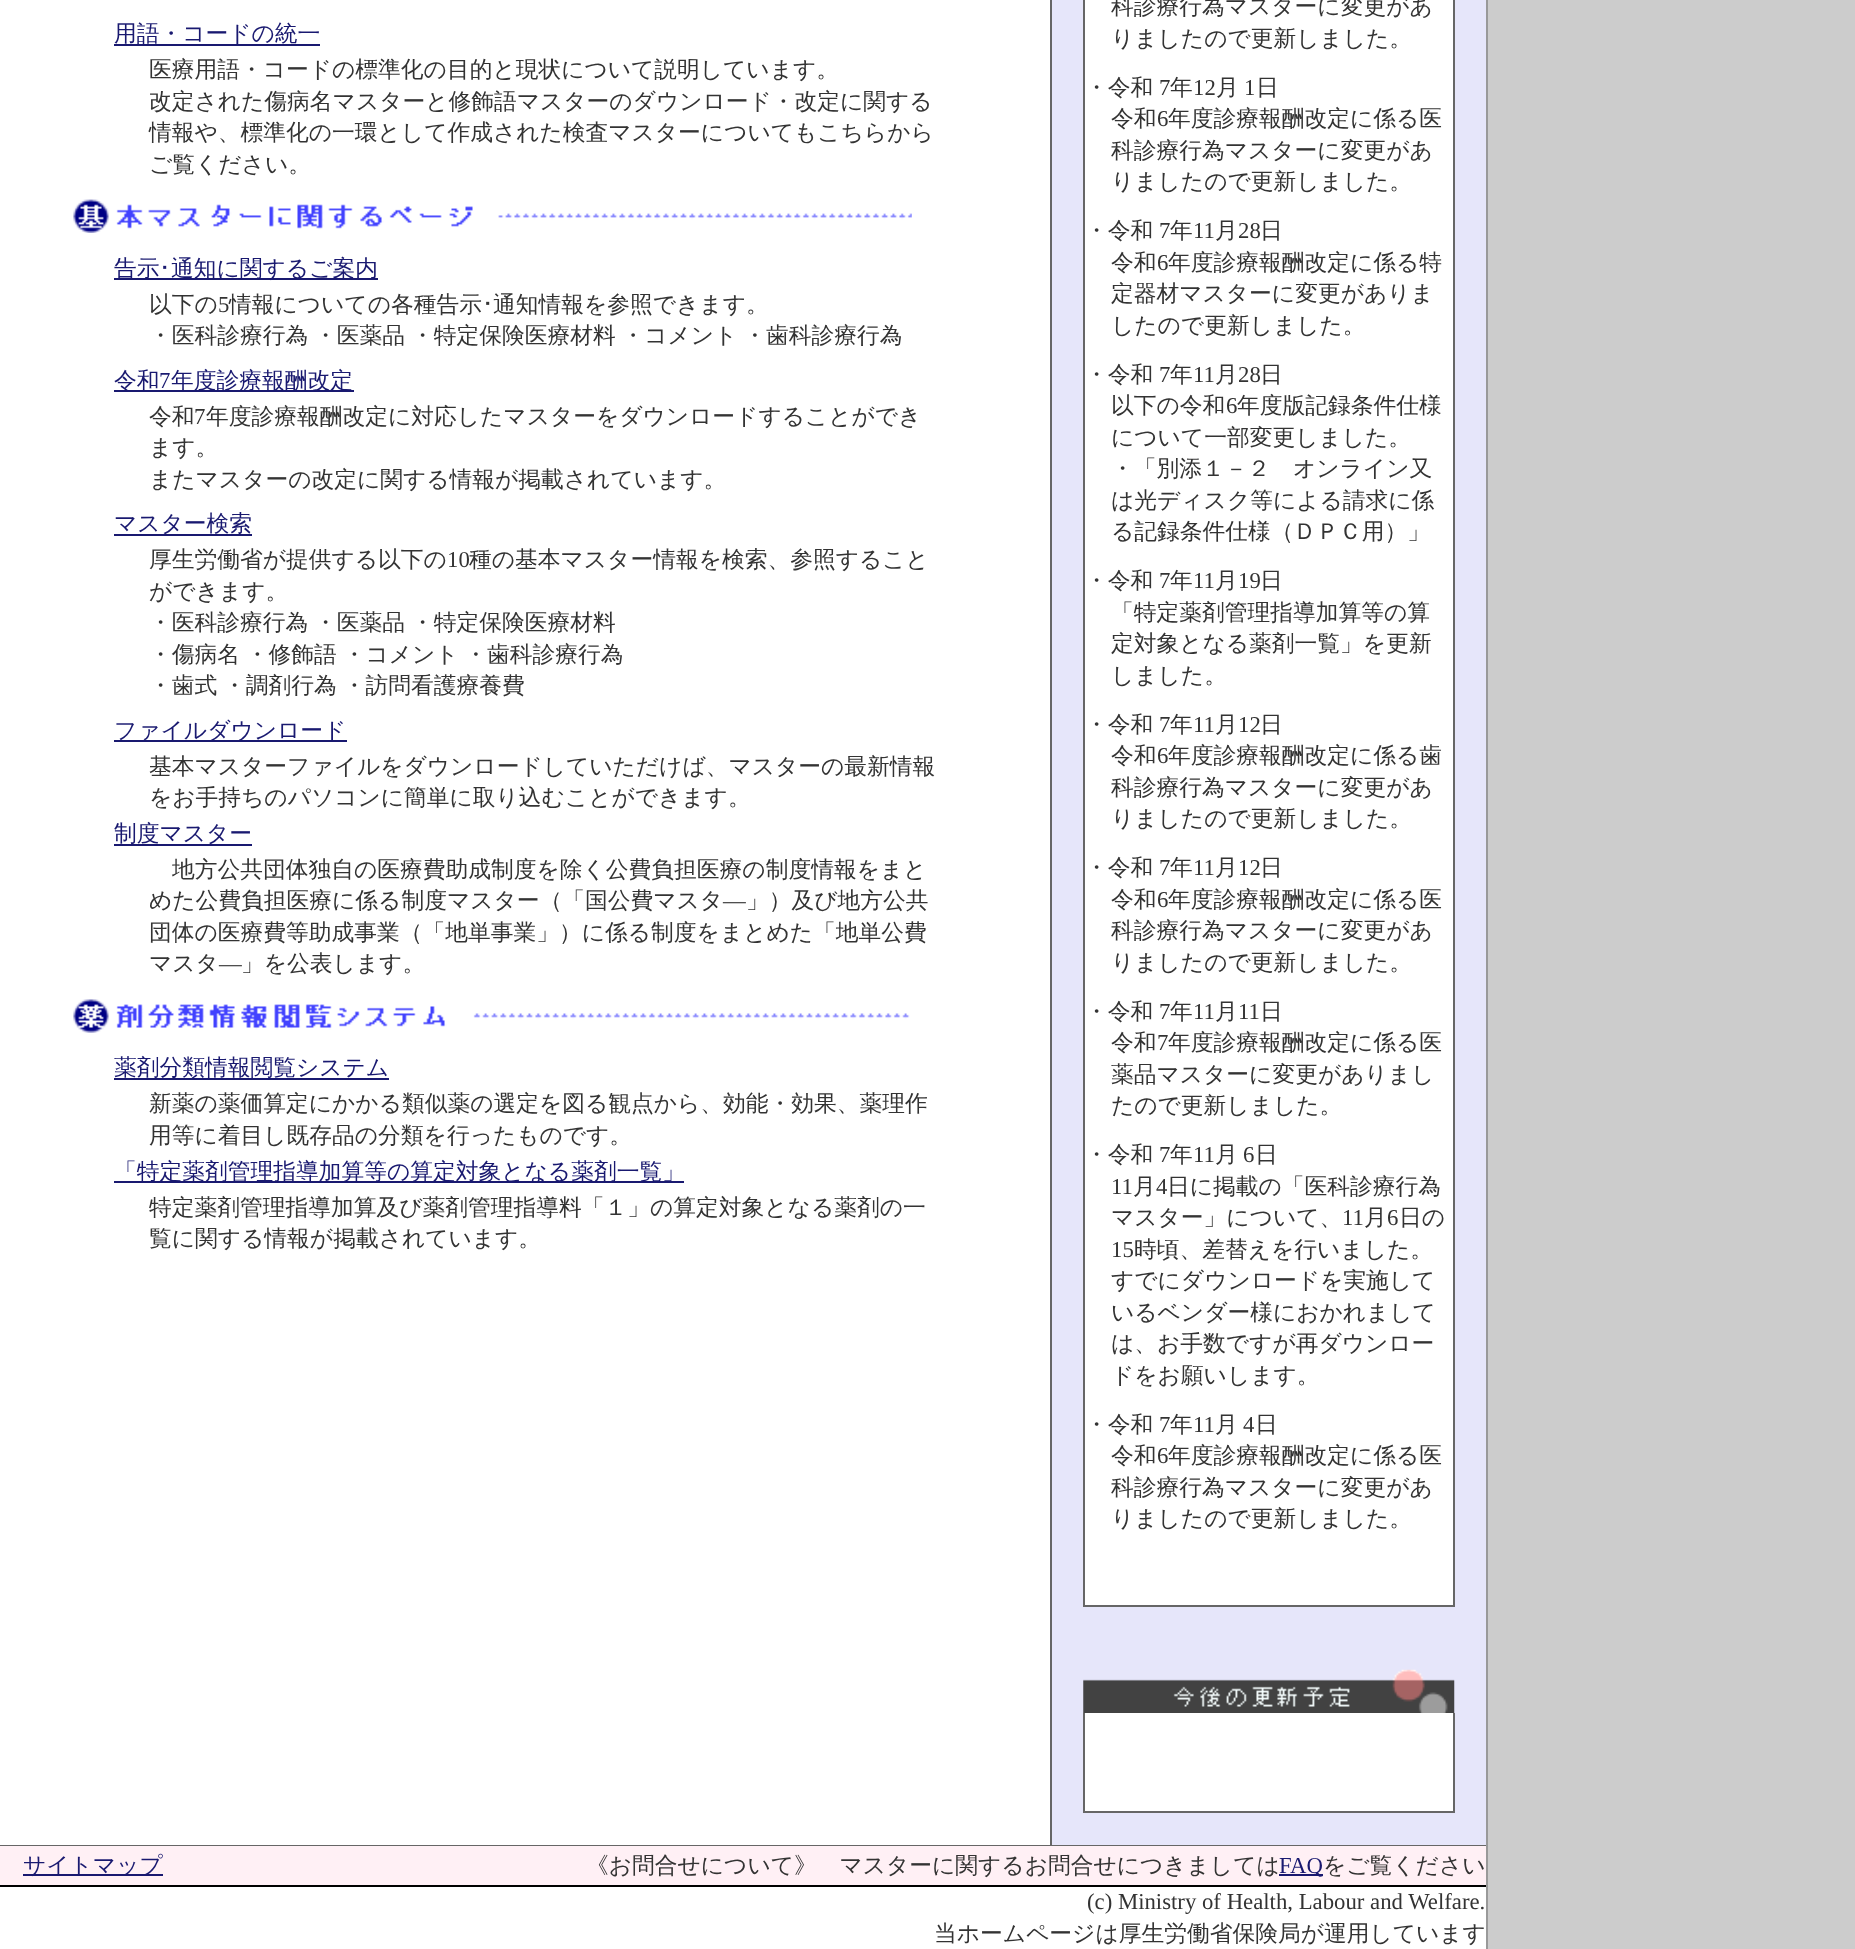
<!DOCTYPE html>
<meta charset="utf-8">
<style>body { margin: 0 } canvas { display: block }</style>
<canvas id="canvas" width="1855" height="1949"></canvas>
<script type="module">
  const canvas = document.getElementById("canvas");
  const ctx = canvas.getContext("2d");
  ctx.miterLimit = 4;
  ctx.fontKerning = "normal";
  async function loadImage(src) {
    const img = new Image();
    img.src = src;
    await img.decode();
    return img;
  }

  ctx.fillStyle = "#cccccc";
  ctx.fillRect(0, 0, 1855, 1949);
  ctx.fillStyle = "#ffffff";
  ctx.fillRect(0, 0, 1486, 1949);
  ctx.font = "500 22.75px WenQuanYi Zen Hei";
  ctx.fillStyle = "#191970";
  ctx.fillText("用語・コードの統一", 114, 41);
  ctx.fillRect(114, 44, 206, 2);
  ctx.fillStyle = "#333333";
  ctx.fillText("医療用語・コードの標準化の目的と現状について説明しています。", 149, 77);
  ctx.fillText("改定された傷病名マスターと修飾語マスターのダウンロード・改定に関する", 149, 109);
  ctx.fillText("情報や、標準化の一環として作成された検査マスターについてもこちらから", 149, 140);
  ctx.fillText("ご覧ください。", 149, 172);
  ctx.drawImage(await loadImage("img1.png"), 73, 199, 839, 34);
  ctx.fillStyle = "#191970";
  ctx.fillRect(114, 278, 264, 2);
  ctx.fillText("告示", 114, 276);
  ctx.font = "22.75px IPAGothic";
  ctx.fillText("･", 159, 276);
  ctx.font = "500 22.75px WenQuanYi Zen Hei";
  ctx.fillText("通知に関するご案内", 171, 276);
  ctx.fillStyle = "#333333";
  ctx.fillText("以下の", 149, 312);
  ctx.font = "22.75px Liberation Serif";
  ctx.fillText("5", 218, 312);
  ctx.font = "500 22.75px WenQuanYi Zen Hei";
  ctx.fillText("情報についての各種告示", 229, 312);
  ctx.font = "22.75px IPAGothic";
  ctx.fillText("･", 482, 312);
  ctx.font = "500 22.75px WenQuanYi Zen Hei";
  ctx.fillText("通知情報を参照できます。", 493, 312);
  ctx.wordSpacing = "-1px";
  ctx.fillText("・医科診療行為 ・医薬品 ・特定保険医療材料 ・コメント ・歯科診療行為", 149, 343);
  ctx.fillStyle = "#191970";
  ctx.fillRect(114, 390, 240, 2);
  ctx.wordSpacing = "0px";
  ctx.fillText("令和", 114, 388);
  ctx.font = "22.75px Liberation Serif";
  ctx.fillText("7", 159, 388);
  ctx.font = "500 22.75px WenQuanYi Zen Hei";
  ctx.fillText("年度診療報酬改定", 171, 388);
  ctx.fillStyle = "#333333";
  ctx.fillText("令和", 149, 424);
  ctx.font = "22.75px Liberation Serif";
  ctx.fillText("7", 194, 424);
  ctx.font = "500 22.75px WenQuanYi Zen Hei";
  ctx.fillText("年度診療報酬改定に対応したマスターをダウンロードすることができ", 206, 424);
  ctx.fillText("ます。", 149, 455);
  ctx.fillText("またマスターの改定に関する情報が掲載されています。", 149, 487);
  ctx.fillStyle = "#191970";
  ctx.fillRect(114, 534, 138, 2);
  ctx.fillText("マスター検索", 114, 531);
  ctx.fillStyle = "#333333";
  ctx.fillText("厚生労働省が提供する以下の", 149, 567);
  ctx.font = "22.75px Liberation Serif";
  ctx.fillText("10", 447, 567);
  ctx.font = "500 22.75px WenQuanYi Zen Hei";
  ctx.fillText("種の基本マスター情報を検索、参照すること", 469, 567);
  ctx.fillText("ができます。", 149, 599);
  ctx.wordSpacing = "-1px";
  ctx.fillText("・医科診療行為 ・医薬品 ・特定保険医療材料", 149, 630);
  ctx.fillText("・傷病名 ・修飾語 ・コメント ・歯科診療行為", 149, 662);
  ctx.fillText("・歯式 ・調剤行為 ・訪問看護療養費", 149, 693);
  ctx.fillStyle = "#191970";
  ctx.fillRect(114, 740, 233, 2);
  ctx.wordSpacing = "0px";
  ctx.fillText("ファイルダウンロード", 114, 738);
  ctx.fillStyle = "#333333";
  ctx.fillText("基本マスターファイルをダウンロードしていただけば、マスターの最新情報", 149, 774);
  ctx.fillText("をお手持ちのパソコンに簡単に取り込むことができます。", 149, 805);
  ctx.fillStyle = "#191970";
  ctx.fillRect(114, 844, 138, 2);
  ctx.fillText("制度マスター", 114, 841);
  ctx.fillStyle = "#333333";
  ctx.fillText("地方公共団体独自の医療費助成制度を除く公費負担医療の制度情報をまと", 172, 877);
  ctx.fillText("めた公費負担医療に係る制度マスター（「国公費マスタ", 149, 908);
  ctx.font = "22.75px Liberation Serif";
  ctx.fillText("―", 723, 908);
  ctx.font = "500 22.75px WenQuanYi Zen Hei";
  ctx.fillText("」）及び地方公共", 746, 908);
  ctx.fillText("団体の医療費等助成事業（「地単事業」）に係る制度をまとめた「地単公費", 149, 940);
  ctx.fillText("マスタ", 149, 971);
  ctx.font = "22.75px Liberation Serif";
  ctx.fillText("―", 219, 971);
  ctx.font = "500 22.75px WenQuanYi Zen Hei";
  ctx.fillText("」を公表します。", 241, 971);
  ctx.drawImage(await loadImage("img2.png"), 73, 999, 837, 34);
  ctx.fillStyle = "#191970";
  ctx.fillRect(114, 1078, 275, 2);
  ctx.fillText("薬剤分類情報閲覧システム", 114, 1075);
  ctx.fillStyle = "#333333";
  ctx.fillText("新薬の薬価算定にかかる類似薬の選定を図る観点から、効能・効果、薬理作", 149, 1111);
  ctx.fillText("用等に着目し既存品の分類を行ったものです。", 149, 1143);
  ctx.fillStyle = "#191970";
  ctx.fillRect(114, 1181, 570, 2);
  ctx.fillText("「特定薬剤管理指導加算等の算定対象となる薬剤一覧」", 114, 1179);
  ctx.fillStyle = "#333333";
  ctx.fillText("特定薬剤管理指導加算及び薬剤管理指導料「１」の算定対象となる薬剤の一", 149, 1215);
  ctx.fillText("覧に関する情報が掲載されています。", 149, 1246);
  ctx.fillStyle = "#666666";
  ctx.fillRect(1050, 0, 2, 1845);
  ctx.fillStyle = "#e6e6fa";
  ctx.fillRect(1052, 0, 434, 1845);
  ctx.fillStyle = "#ffffff";
  ctx.fillRect(1085, 0, 368, 1605);
  ctx.fillStyle = "#666666";
  ctx.fillRect(1083, 0, 2, 1607);
  ctx.fillStyle = "#333333";
  ctx.fillText("科診療行為マスターに変更があ", 1111, 14);
  ctx.fillText("りましたので更新しました。", 1111, 46);
  ctx.fillText("・令和", 1085, 95);
  ctx.font = "22.75px Liberation Serif";
  ctx.fillText("7", 1159, 95);
  ctx.font = "500 22.75px WenQuanYi Zen Hei";
  ctx.fillText("年", 1170, 95);
  ctx.font = "22.75px Liberation Serif";
  ctx.fillText("12", 1193, 95);
  ctx.font = "500 22.75px WenQuanYi Zen Hei";
  ctx.fillText("月", 1216, 95);
  ctx.font = "22.75px Liberation Serif";
  ctx.fillText("1", 1244, 95);
  ctx.font = "500 22.75px WenQuanYi Zen Hei";
  ctx.fillText("日", 1256, 95);
  ctx.fillText("令和", 1111, 126);
  ctx.font = "22.75px Liberation Serif";
  ctx.fillText("6", 1157, 126);
  ctx.font = "500 22.75px WenQuanYi Zen Hei";
  ctx.fillText("年度診療報酬改定に係る医", 1168, 126);
  ctx.fillText("科診療行為マスターに変更があ", 1111, 158);
  ctx.fillText("りましたので更新しました。", 1111, 189);
  ctx.fillText("・令和", 1085, 238);
  ctx.font = "22.75px Liberation Serif";
  ctx.fillText("7", 1159, 238);
  ctx.font = "500 22.75px WenQuanYi Zen Hei";
  ctx.fillText("年", 1170, 238);
  ctx.font = "22.75px Liberation Serif";
  ctx.fillText("11", 1193, 238);
  ctx.font = "500 22.75px WenQuanYi Zen Hei";
  ctx.fillText("月", 1215, 238);
  ctx.font = "22.75px Liberation Serif";
  ctx.fillText("28", 1238, 238);
  ctx.font = "500 22.75px WenQuanYi Zen Hei";
  ctx.fillText("日", 1260, 238);
  ctx.fillText("令和", 1111, 270);
  ctx.font = "22.75px Liberation Serif";
  ctx.fillText("6", 1157, 270);
  ctx.font = "500 22.75px WenQuanYi Zen Hei";
  ctx.fillText("年度診療報酬改定に係る特", 1168, 270);
  ctx.fillText("定器材マスターに変更がありま", 1111, 301);
  ctx.fillText("したので更新しました。", 1111, 333);
  ctx.fillText("・令和", 1085, 382);
  ctx.font = "22.75px Liberation Serif";
  ctx.fillText("7", 1159, 382);
  ctx.font = "500 22.75px WenQuanYi Zen Hei";
  ctx.fillText("年", 1170, 382);
  ctx.font = "22.75px Liberation Serif";
  ctx.fillText("11", 1193, 382);
  ctx.font = "500 22.75px WenQuanYi Zen Hei";
  ctx.fillText("月", 1215, 382);
  ctx.font = "22.75px Liberation Serif";
  ctx.fillText("28", 1238, 382);
  ctx.font = "500 22.75px WenQuanYi Zen Hei";
  ctx.fillText("日", 1260, 382);
  ctx.fillText("以下の令和", 1111, 413);
  ctx.font = "22.75px Liberation Serif";
  ctx.fillText("6", 1226, 413);
  ctx.font = "500 22.75px WenQuanYi Zen Hei";
  ctx.fillText("年度版記録条件仕様", 1237, 413);
  ctx.fillText("について一部変更しました。", 1111, 445);
  ctx.fillText("・「別添１－２　オンライン又", 1111, 476);
  ctx.fillText("は光ディスク等による請求に係", 1111, 508);
  ctx.fillText("る記録条件仕様（ＤＰＣ用）」", 1111, 539);
  ctx.fillText("・令和", 1085, 588);
  ctx.font = "22.75px Liberation Serif";
  ctx.fillText("7", 1159, 588);
  ctx.font = "500 22.75px WenQuanYi Zen Hei";
  ctx.fillText("年", 1170, 588);
  ctx.font = "22.75px Liberation Serif";
  ctx.fillText("11", 1193, 588);
  ctx.font = "500 22.75px WenQuanYi Zen Hei";
  ctx.fillText("月", 1215, 588);
  ctx.font = "22.75px Liberation Serif";
  ctx.fillText("19", 1238, 588);
  ctx.font = "500 22.75px WenQuanYi Zen Hei";
  ctx.fillText("日", 1260, 588);
  ctx.fillText("「特定薬剤管理指導加算等の算", 1111, 620);
  ctx.fillText("定対象となる薬剤一覧」を更新", 1111, 651);
  ctx.fillText("しました。", 1111, 683);
  ctx.fillText("・令和", 1085, 732);
  ctx.font = "22.75px Liberation Serif";
  ctx.fillText("7", 1159, 732);
  ctx.font = "500 22.75px WenQuanYi Zen Hei";
  ctx.fillText("年", 1170, 732);
  ctx.font = "22.75px Liberation Serif";
  ctx.fillText("11", 1193, 732);
  ctx.font = "500 22.75px WenQuanYi Zen Hei";
  ctx.fillText("月", 1215, 732);
  ctx.font = "22.75px Liberation Serif";
  ctx.fillText("12", 1238, 732);
  ctx.font = "500 22.75px WenQuanYi Zen Hei";
  ctx.fillText("日", 1260, 732);
  ctx.fillText("令和", 1111, 763);
  ctx.font = "22.75px Liberation Serif";
  ctx.fillText("6", 1157, 763);
  ctx.font = "500 22.75px WenQuanYi Zen Hei";
  ctx.fillText("年度診療報酬改定に係る歯", 1168, 763);
  ctx.fillText("科診療行為マスターに変更があ", 1111, 795);
  ctx.fillText("りましたので更新しました。", 1111, 826);
  ctx.fillText("・令和", 1085, 875);
  ctx.font = "22.75px Liberation Serif";
  ctx.fillText("7", 1159, 875);
  ctx.font = "500 22.75px WenQuanYi Zen Hei";
  ctx.fillText("年", 1170, 875);
  ctx.font = "22.75px Liberation Serif";
  ctx.fillText("11", 1193, 875);
  ctx.font = "500 22.75px WenQuanYi Zen Hei";
  ctx.fillText("月", 1215, 875);
  ctx.font = "22.75px Liberation Serif";
  ctx.fillText("12", 1238, 875);
  ctx.font = "500 22.75px WenQuanYi Zen Hei";
  ctx.fillText("日", 1260, 875);
  ctx.fillText("令和", 1111, 907);
  ctx.font = "22.75px Liberation Serif";
  ctx.fillText("6", 1157, 907);
  ctx.font = "500 22.75px WenQuanYi Zen Hei";
  ctx.fillText("年度診療報酬改定に係る医", 1168, 907);
  ctx.fillText("科診療行為マスターに変更があ", 1111, 938);
  ctx.fillText("りましたので更新しました。", 1111, 970);
  ctx.fillText("・令和", 1085, 1019);
  ctx.font = "22.75px Liberation Serif";
  ctx.fillText("7", 1159, 1019);
  ctx.font = "500 22.75px WenQuanYi Zen Hei";
  ctx.fillText("年", 1170, 1019);
  ctx.font = "22.75px Liberation Serif";
  ctx.fillText("11", 1193, 1019);
  ctx.font = "500 22.75px WenQuanYi Zen Hei";
  ctx.fillText("月", 1215, 1019);
  ctx.font = "22.75px Liberation Serif";
  ctx.fillText("11", 1238, 1019);
  ctx.font = "500 22.75px WenQuanYi Zen Hei";
  ctx.fillText("日", 1260, 1019);
  ctx.fillText("令和", 1111, 1050);
  ctx.font = "22.75px Liberation Serif";
  ctx.fillText("7", 1157, 1050);
  ctx.font = "500 22.75px WenQuanYi Zen Hei";
  ctx.fillText("年度診療報酬改定に係る医", 1168, 1050);
  ctx.fillText("薬品マスターに変更がありまし", 1111, 1082);
  ctx.fillText("たので更新しました。", 1111, 1113);
  ctx.fillText("・令和", 1085, 1162);
  ctx.font = "22.75px Liberation Serif";
  ctx.fillText("7", 1159, 1162);
  ctx.font = "500 22.75px WenQuanYi Zen Hei";
  ctx.fillText("年", 1170, 1162);
  ctx.font = "22.75px Liberation Serif";
  ctx.fillText("11", 1193, 1162);
  ctx.font = "500 22.75px WenQuanYi Zen Hei";
  ctx.fillText("月", 1215, 1162);
  ctx.font = "22.75px Liberation Serif";
  ctx.fillText("6", 1243, 1162);
  ctx.font = "500 22.75px WenQuanYi Zen Hei";
  ctx.fillText("日", 1255, 1162);
  ctx.font = "22.75px Liberation Serif";
  ctx.fillText("11", 1111, 1194);
  ctx.font = "500 22.75px WenQuanYi Zen Hei";
  ctx.fillText("月", 1133, 1194);
  ctx.font = "22.75px Liberation Serif";
  ctx.fillText("4", 1156, 1194);
  ctx.font = "500 22.75px WenQuanYi Zen Hei";
  ctx.fillText("日に掲載の「医科診療行為", 1167, 1194);
  ctx.fillText("マスター」について、", 1111, 1225);
  ctx.font = "22.75px Liberation Serif";
  ctx.fillText("11", 1342, 1225);
  ctx.font = "500 22.75px WenQuanYi Zen Hei";
  ctx.fillText("月", 1364, 1225);
  ctx.font = "22.75px Liberation Serif";
  ctx.fillText("6", 1387, 1225);
  ctx.font = "500 22.75px WenQuanYi Zen Hei";
  ctx.fillText("日の", 1399, 1225);
  ctx.font = "22.75px Liberation Serif";
  ctx.fillText("15", 1111, 1257);
  ctx.font = "500 22.75px WenQuanYi Zen Hei";
  ctx.fillText("時頃、差替えを行いました。", 1134, 1257);
  ctx.fillText("すでにダウンロードを実施して", 1111, 1288);
  ctx.fillText("いるベンダー様におかれまして", 1111, 1320);
  ctx.fillText("は、お手数ですが再ダウンロー", 1111, 1351);
  ctx.fillText("ドをお願いします。", 1111, 1383);
  ctx.fillText("・令和", 1085, 1432);
  ctx.font = "22.75px Liberation Serif";
  ctx.fillText("7", 1159, 1432);
  ctx.font = "500 22.75px WenQuanYi Zen Hei";
  ctx.fillText("年", 1170, 1432);
  ctx.font = "22.75px Liberation Serif";
  ctx.fillText("11", 1193, 1432);
  ctx.font = "500 22.75px WenQuanYi Zen Hei";
  ctx.fillText("月", 1215, 1432);
  ctx.font = "22.75px Liberation Serif";
  ctx.fillText("4", 1243, 1432);
  ctx.font = "500 22.75px WenQuanYi Zen Hei";
  ctx.fillText("日", 1255, 1432);
  ctx.fillText("令和", 1111, 1463);
  ctx.font = "22.75px Liberation Serif";
  ctx.fillText("6", 1157, 1463);
  ctx.font = "500 22.75px WenQuanYi Zen Hei";
  ctx.fillText("年度診療報酬改定に係る医", 1168, 1463);
  ctx.fillText("科診療行為マスターに変更があ", 1111, 1495);
  ctx.fillText("りましたので更新しました。", 1111, 1526);
  ctx.fillStyle = "#666666";
  ctx.fillRect(1085, 1605, 368, 2);
  ctx.fillRect(1453, 0, 2, 1607);
  ctx.drawImage(await loadImage("img3.png"), 1083, 1669, 372, 44);
  ctx.fillRect(1083, 1713, 2, 100);
  ctx.fillStyle = "#ffffff";
  ctx.fillRect(1085, 1713, 368, 98);
  ctx.fillStyle = "#666666";
  ctx.fillRect(1085, 1811, 368, 2);
  ctx.fillRect(1453, 1713, 2, 100);
  ctx.fillRect(0, 1845, 1486, 1);
  ctx.fillStyle = "#fff0f5";
  ctx.fillRect(0, 1846, 1486, 39);
  ctx.fillStyle = "#191970";
  ctx.fillRect(23, 1874, 140, 2);
  ctx.fillText("サイトマップ", 23, 1873);
  ctx.fillStyle = "#333333";
  ctx.fillText("《お問合せについて》　マスターに関するお問合せにつきましては", 586, 1873);
  ctx.fillStyle = "#191970";
  ctx.fillRect(1279, 1874, 44, 2);
  ctx.font = "22.75px Liberation Serif";
  ctx.fillText("FAQ", 1279, 1873);
  ctx.font = "500 22.75px WenQuanYi Zen Hei";
  ctx.fillStyle = "#333333";
  ctx.fillText("をご覧ください", 1323, 1873);
  ctx.fillStyle = "#000000";
  ctx.fillRect(0, 1885, 1486, 2);
  ctx.font = "22.75px Liberation Serif";
  ctx.fillStyle = "#333333";
  ctx.fillText("(c) Ministry of Health, Labour and Welfare.", 1087, 1909);
  ctx.font = "500 22.75px WenQuanYi Zen Hei";
  ctx.fillText("当ホームページは厚生労働省保険局が運用しています", 934, 1941);
  ctx.fillStyle = "#999999";
  ctx.fillRect(1486, 0, 2, 1949);
</script>
